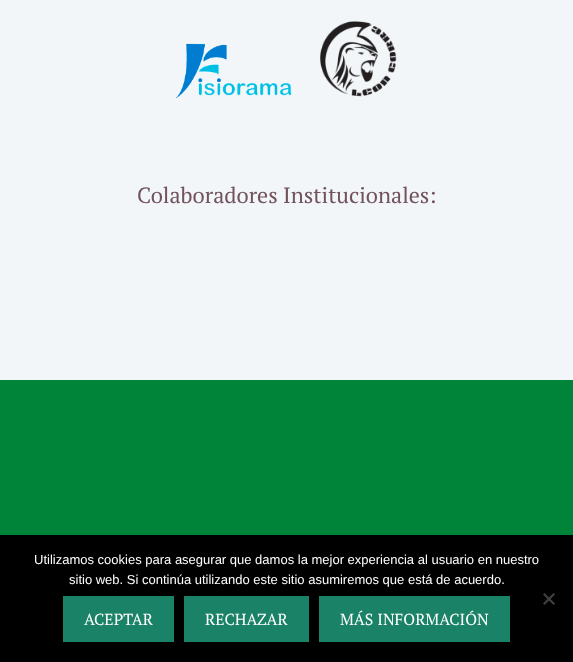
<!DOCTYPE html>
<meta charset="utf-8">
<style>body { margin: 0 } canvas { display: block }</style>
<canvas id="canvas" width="573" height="662"></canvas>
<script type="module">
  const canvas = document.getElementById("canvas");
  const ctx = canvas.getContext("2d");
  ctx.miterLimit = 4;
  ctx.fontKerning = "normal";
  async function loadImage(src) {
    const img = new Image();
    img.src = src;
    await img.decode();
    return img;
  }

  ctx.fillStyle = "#f2f6f9";
  ctx.fillRect(0, 0, 573, 662);
  ctx.drawImage(await loadImage("img1.png"), 175, 43, 117, 56);
  ctx.drawImage(await loadImage("img2.png"), 320, 21, 77, 76);
  ctx.font = "22px PT Serif";
  ctx.fillStyle = "#71535c";
  ctx.fillText("Colaboradores Institucionales:", 137, 203);
  ctx.fillStyle = "#008439";
  ctx.fillRect(0, 380, 573, 155);
  ctx.fillStyle = "#000000";
  ctx.fillRect(0, 535, 573, 127);
  ctx.font = "13px Liberation Sans";
  ctx.fillStyle = "#ffffff";
  ctx.fillText("Utilizamos cookies para asegurar que damos la mejor experiencia al usuario en nuestro", 34, 564);
  ctx.fillText("sitio web. Si continúa utilizando este sitio asumiremos que está de acuerdo.", 69, 584);
  ctx.fillStyle = "#404040";
  ctx.beginPath();
  ctx.moveTo(553.5, 593);
  ctx.lineTo(555, 594.5);
  ctx.lineTo(544.5, 605);
  ctx.lineTo(543, 603.5);
  ctx.closePath();
  ctx.fill();
  ctx.beginPath();
  ctx.moveTo(543, 594.5);
  ctx.lineTo(544.5, 593);
  ctx.lineTo(555, 603.5);
  ctx.lineTo(553.5, 605);
  ctx.closePath();
  ctx.fill();
  ctx.fillStyle = "#1a8266";
  ctx.fillRect(63, 596, 111, 46);
  ctx.font = "16px PT Serif";
  ctx.fillStyle = "#ffffff";
  ctx.fillText("ACEPTAR", 84, 625);
  ctx.fillStyle = "#1a8266";
  ctx.fillRect(184, 596, 125, 46);
  ctx.fillStyle = "#ffffff";
  ctx.fillText("RECHAZAR", 205, 625);
  ctx.fillStyle = "#1a8266";
  ctx.fillRect(319, 596, 191, 46);
  ctx.fillStyle = "#ffffff";
  ctx.fillText("MÁS INFORMACIÓN", 340, 625);
</script>
